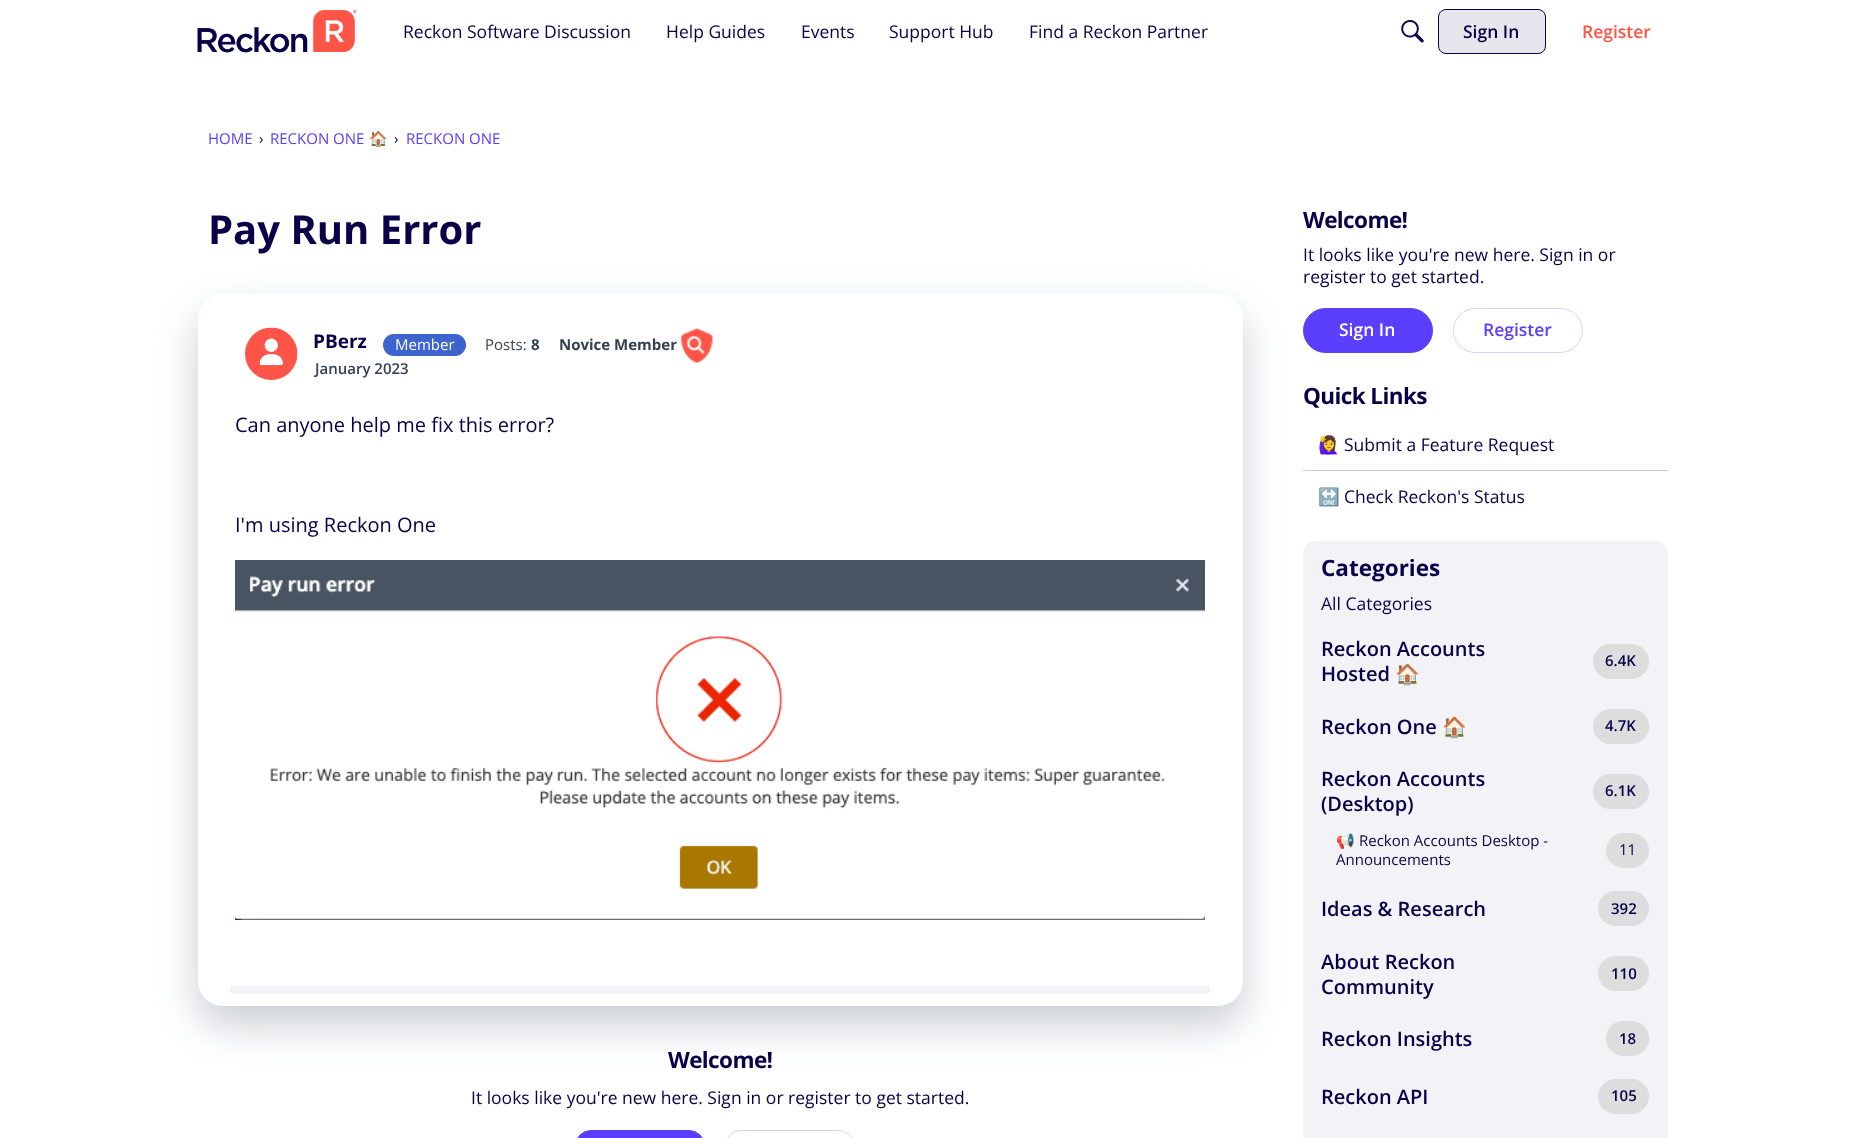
<!DOCTYPE html>
<meta charset="utf-8">
<style>body { margin: 0 } canvas { display: block }</style>
<canvas id="canvas" width="1875" height="1138"></canvas>
<script type="module">
  const canvas = document.getElementById("canvas");
  const ctx = canvas.getContext("2d");
  ctx.miterLimit = 4;
  ctx.fontKerning = "normal";
  async function loadImage(src) {
    const img = new Image();
    img.src = src;
    await img.decode();
    return img;
  }

  ctx.fillStyle = "#ffffff";
  ctx.fillRect(0, 0, 1875, 1138);
  ctx.drawImage(await loadImage("img1.png"), 197, 10, 160, 43);
  ctx.font = "17.5px Open Sans";
  ctx.fillStyle = "#0a004a";
  ctx.fillText("Reckon Software Discussion", 403, 38);
  ctx.fillText("Help Guides", 666, 38);
  ctx.fillText("Events", 801, 38);
  ctx.fillText("Support Hub", 889, 38);
  ctx.fillText("Find a Reckon Partner", 1029, 38);
  ctx.drawImage(await loadImage("img2.png"), 1401, 20, 23, 23);
  ctx.fillStyle = "#e7e6ed";
  ctx.beginPath();
  ctx.roundRect(1438.5, 9.5, 107, 44, 7.5);
  ctx.fill();
  ctx.strokeStyle = "#0a004a";
  ctx.stroke();
  ctx.font = "600 17.5px Open Sans";
  ctx.fillStyle = "#0a004a";
  ctx.fillText("Sign In", 1463, 38);
  ctx.fillStyle = "#ff5447";
  ctx.fillText("Register", 1582, 38);
  ctx.font = "15px Open Sans";
  ctx.fillStyle = "#5a3fff";
  ctx.fillText("HOME", 208, 144);
  ctx.fillStyle = "#0a004a";
  ctx.fillText("›", 259, 144);
  ctx.fillStyle = "#5a3fff";
  ctx.fillText("RECKON ONE", 270, 144);
  ctx.font = "15px Noto Color Emoji";
  ctx.fillText("🏠", 369, 144);
  ctx.font = "15px Open Sans";
  ctx.fillStyle = "#0a004a";
  ctx.fillText("›", 394, 144);
  ctx.fillStyle = "#5a3fff";
  ctx.fillText("RECKON ONE", 406, 144);
  ctx.font = "bold 40px Open Sans";
  ctx.fillStyle = "#0a004a";
  ctx.fillText("Pay Run Error", 208, 244);
  ctx.fillStyle = "#ceccdb";
  ctx.fillRect(1303, 470, 365, 1);
  ctx.fillStyle = "#f3f2f6";
  ctx.beginPath();
  ctx.roundRect(1303, 541, 365, 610, 13);
  ctx.fill();
  ctx.fillStyle = "#c9ced4";
  ctx.filter = "blur(20px)";
  ctx.beginPath();
  ctx.roundRect(198, 313, 1045, 712, 25);
  ctx.fill();
  ctx.filter = "none";
  ctx.fillStyle = "#ffffff";
  ctx.beginPath();
  ctx.roundRect(198, 294, 1045, 712, 25);
  ctx.fill();
  ctx.drawImage(await loadImage("img3.png"), 245, 327, 53, 53);
  ctx.font = "bold 19px Open Sans";
  ctx.fillStyle = "#0a004a";
  ctx.fillText("PBerz", 313, 348);
  ctx.fillStyle = "#3c63ce";
  ctx.beginPath();
  ctx.roundRect(383, 334, 83, 22, 11);
  ctx.fill();
  ctx.font = "15px Open Sans";
  ctx.fillStyle = "#ffffff";
  ctx.fillText("Member", 395, 350);
  ctx.fillStyle = "#364150";
  ctx.fillText("Posts:", 485, 350);
  ctx.font = "bold 15px Open Sans";
  ctx.fillText("8", 531, 350);
  ctx.fillText("Novice Member", 559, 350);
  ctx.drawImage(await loadImage("img4.png"), 681, 328, 32, 35);
  ctx.font = "600 15px Open Sans";
  ctx.fillText("January 2023", 315, 374);
  ctx.font = "20px Open Sans";
  ctx.fillStyle = "#0a004a";
  ctx.fillText("Can anyone help me fix this error?", 235, 432);
  ctx.fillText("I'm using Reckon One", 235, 532);
  ctx.drawImage(await loadImage("img5.png"), 235, 560, 970, 360);
  ctx.fillStyle = "#f3f2f6";
  ctx.beginPath();
  ctx.roundRect(230, 986, 980, 8, 4);
  ctx.fill();
  ctx.letterSpacing = "-0.6px";
  ctx.font = "bold 22.5px Open Sans";
  ctx.fillStyle = "#0a004a";
  ctx.fillText("Welcome!", 668, 1068);
  ctx.letterSpacing = "0px";
  ctx.font = "17.5px Open Sans";
  ctx.fillText("It looks like you're new here. Sign in or register to get started.", 471, 1104);
  ctx.fillStyle = "#5a3fff";
  ctx.beginPath();
  ctx.roundRect(575.5, 1130.5, 129, 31, 22);
  ctx.fill();
  ctx.strokeStyle = "#5a3fff";
  ctx.stroke();
  ctx.beginPath();
  ctx.roundRect(725.5, 1130.5, 129, 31, 22);
  ctx.strokeStyle = "#d7d1ff";
  ctx.stroke();
  ctx.letterSpacing = "-0.6px";
  ctx.font = "bold 22.5px Open Sans";
  ctx.fillStyle = "#0a004a";
  ctx.fillText("Welcome!", 1303, 228);
  ctx.letterSpacing = "0px";
  ctx.font = "17.5px Open Sans";
  ctx.fillText("It looks like you're new here. Sign in or", 1303, 261);
  ctx.fillText("register to get started.", 1303, 283);
  ctx.fillStyle = "#5a3fff";
  ctx.beginPath();
  ctx.roundRect(1303.5, 308.5, 129, 44, 22);
  ctx.fill();
  ctx.strokeStyle = "#5a3fff";
  ctx.stroke();
  ctx.font = "600 17.5px Open Sans";
  ctx.fillStyle = "#ffffff";
  ctx.fillText("Sign In", 1339, 336);
  ctx.beginPath();
  ctx.roundRect(1453.5, 308.5, 129, 44, 22);
  ctx.strokeStyle = "#d7d1ff";
  ctx.stroke();
  ctx.fillStyle = "#5a3fff";
  ctx.fillText("Register", 1483, 336);
  ctx.letterSpacing = "-0.6px";
  ctx.font = "bold 22.5px Open Sans";
  ctx.fillStyle = "#0a004a";
  ctx.fillText("Quick Links", 1303, 404);
  ctx.letterSpacing = "0px";
  ctx.font = "17.5px Noto Color Emoji";
  ctx.fillText("🙋‍♀️", 1318, 451);
  ctx.font = "17.5px Open Sans";
  ctx.fillText("Submit a Feature Request", 1344, 451);
  ctx.font = "17.5px Noto Color Emoji";
  ctx.fillText("🔛", 1318, 503);
  ctx.font = "17.5px Open Sans";
  ctx.fillText("Check Reckon's Status", 1344, 503);
  ctx.font = "bold 22.5px Open Sans";
  ctx.fillText("Categories", 1321, 576);
  ctx.font = "17.5px Open Sans";
  ctx.fillText("All Categories", 1321, 610);
  ctx.font = "600 20px Open Sans";
  ctx.fillText("Reckon Accounts", 1321, 656);
  ctx.fillStyle = "#dddddd";
  ctx.beginPath();
  ctx.roundRect(1593, 644, 56, 35, 17.5);
  ctx.fill();
  ctx.font = "600 15px Open Sans";
  ctx.fillStyle = "#0a004a";
  ctx.fillText("6.4K", 1605, 666);
  ctx.font = "600 20px Open Sans";
  ctx.fillText("Hosted", 1321, 681);
  ctx.font = "bold 20px Noto Color Emoji";
  ctx.fillText("🏠", 1395, 681);
  ctx.font = "600 20px Open Sans";
  ctx.fillText("Reckon One", 1321, 734);
  ctx.font = "bold 20px Noto Color Emoji";
  ctx.fillText("🏠", 1442, 734);
  ctx.fillStyle = "#dddddd";
  ctx.beginPath();
  ctx.roundRect(1593, 709, 56, 35, 17.5);
  ctx.fill();
  ctx.font = "600 15px Open Sans";
  ctx.fillStyle = "#0a004a";
  ctx.fillText("4.7K", 1605, 731);
  ctx.font = "600 20px Open Sans";
  ctx.fillText("Reckon Accounts", 1321, 786);
  ctx.fillStyle = "#dddddd";
  ctx.beginPath();
  ctx.roundRect(1593, 774, 56, 35, 17.5);
  ctx.fill();
  ctx.font = "600 15px Open Sans";
  ctx.fillStyle = "#0a004a";
  ctx.fillText("6.1K", 1605, 796);
  ctx.font = "600 20px Open Sans";
  ctx.fillText("(Desktop)", 1321, 811);
  ctx.font = "15px Noto Color Emoji";
  ctx.fillText("📢", 1336, 846);
  ctx.font = "15px Open Sans";
  ctx.fillText("Reckon Accounts Desktop -", 1359, 846);
  ctx.fillStyle = "#dddddd";
  ctx.beginPath();
  ctx.roundRect(1606, 833, 43, 35, 17.5);
  ctx.fill();
  ctx.fillStyle = "#0a004a";
  ctx.fillText("11", 1619, 855);
  ctx.fillText("Announcements", 1336, 865);
  ctx.font = "600 20px Open Sans";
  ctx.fillText("Ideas & Research", 1321, 916);
  ctx.fillStyle = "#dddddd";
  ctx.beginPath();
  ctx.roundRect(1598, 891, 51, 35, 17.5);
  ctx.fill();
  ctx.font = "600 15px Open Sans";
  ctx.fillStyle = "#0a004a";
  ctx.fillText("392", 1611, 914);
  ctx.font = "600 20px Open Sans";
  ctx.fillText("About Reckon", 1321, 969);
  ctx.fillStyle = "#dddddd";
  ctx.beginPath();
  ctx.roundRect(1598, 956, 51, 35, 17.5);
  ctx.fill();
  ctx.font = "600 15px Open Sans";
  ctx.fillStyle = "#0a004a";
  ctx.fillText("110", 1611, 979);
  ctx.font = "600 20px Open Sans";
  ctx.fillText("Community", 1321, 994);
  ctx.fillText("Reckon Insights", 1321, 1046);
  ctx.fillStyle = "#dddddd";
  ctx.beginPath();
  ctx.roundRect(1606, 1021, 43, 35, 17.5);
  ctx.fill();
  ctx.font = "600 15px Open Sans";
  ctx.fillStyle = "#0a004a";
  ctx.fillText("18", 1619, 1044);
  ctx.font = "600 20px Open Sans";
  ctx.fillText("Reckon API", 1321, 1104);
  ctx.fillStyle = "#dddddd";
  ctx.beginPath();
  ctx.roundRect(1598, 1079, 51, 35, 17.5);
  ctx.fill();
  ctx.font = "600 15px Open Sans";
  ctx.fillStyle = "#0a004a";
  ctx.fillText("105", 1611, 1101);
</script>
